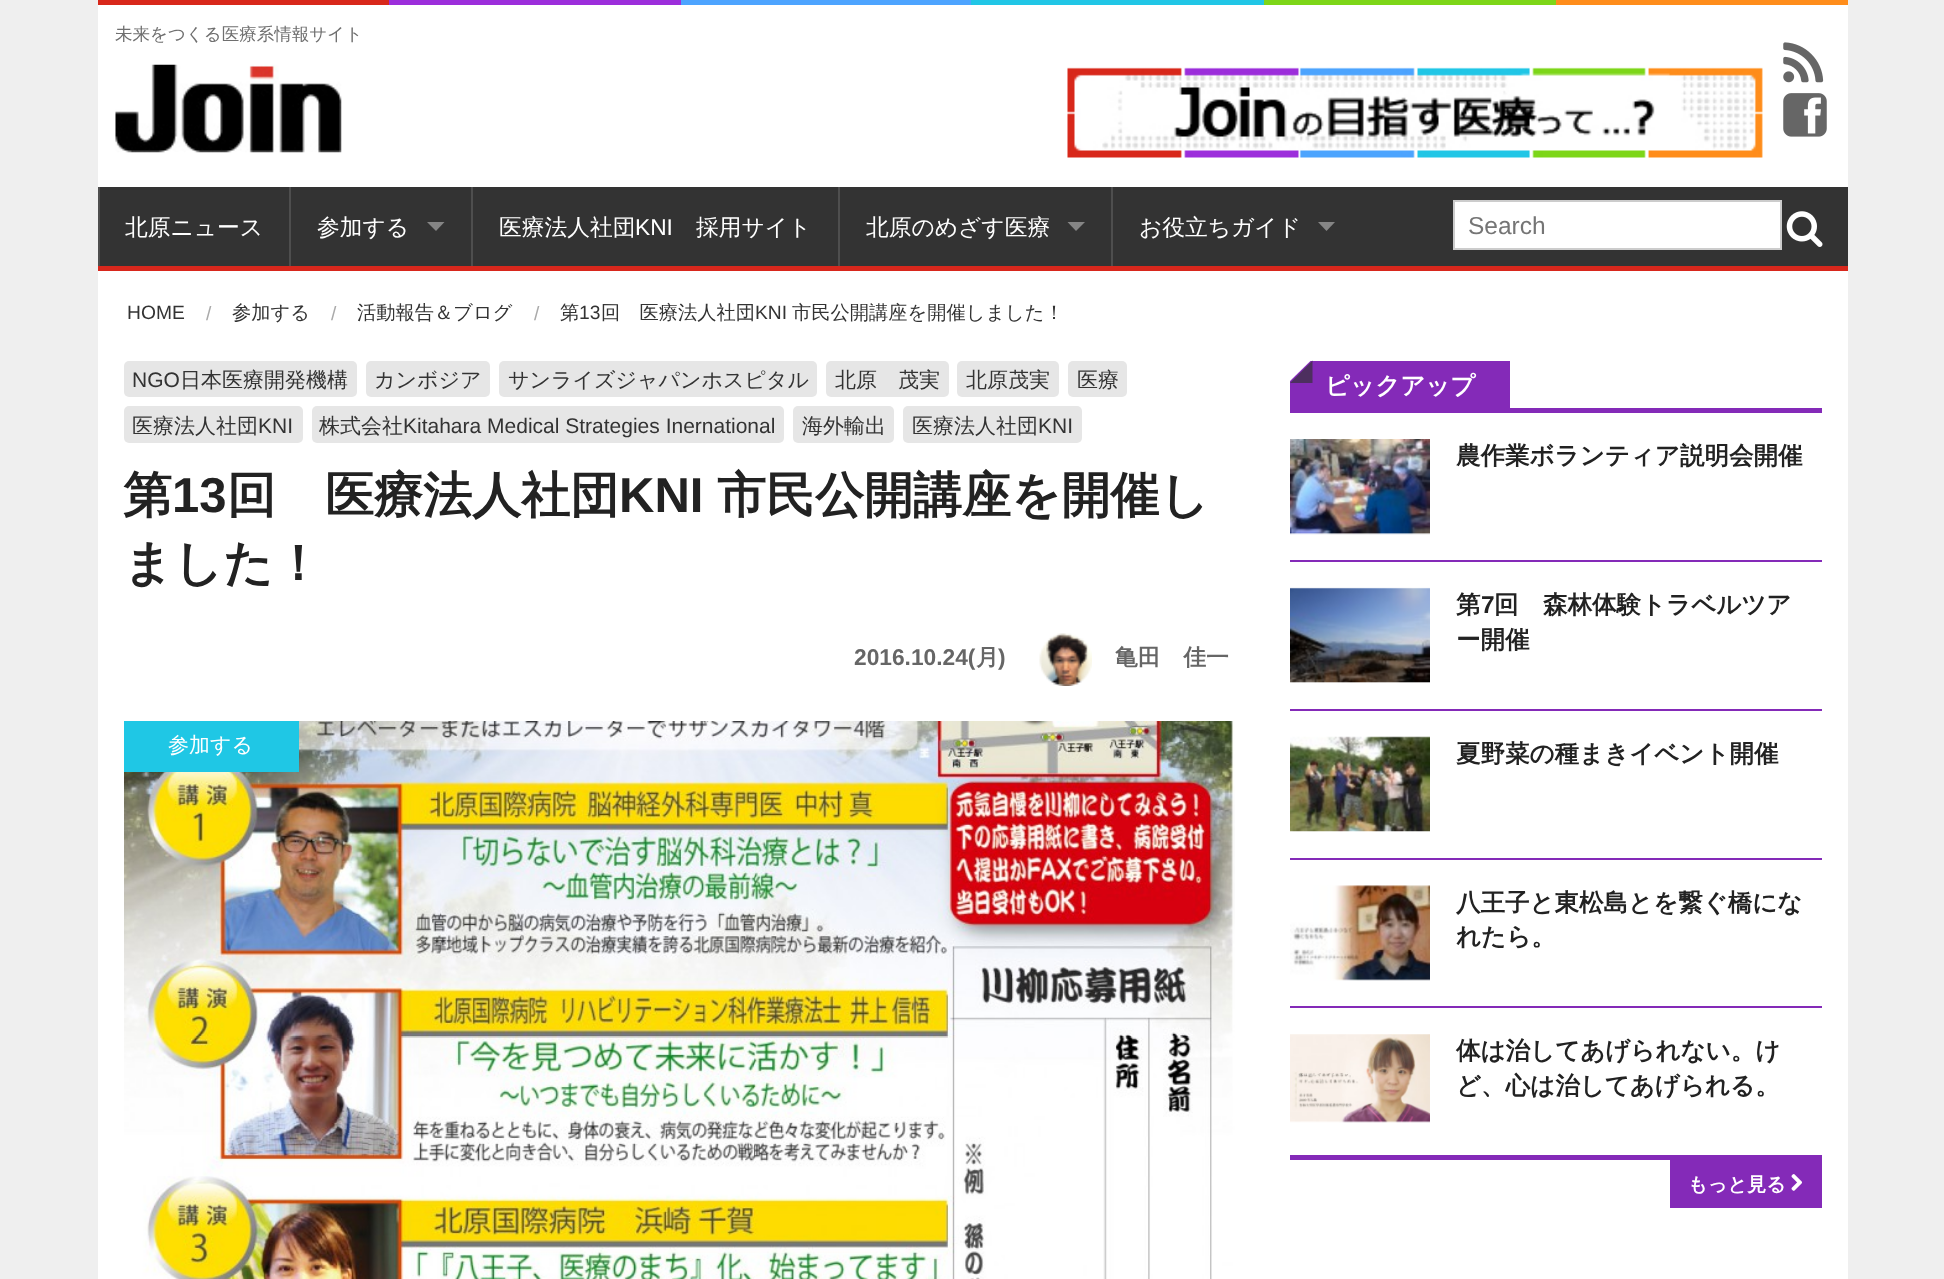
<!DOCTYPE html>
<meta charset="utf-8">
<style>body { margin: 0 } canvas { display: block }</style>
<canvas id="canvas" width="1944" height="1279"></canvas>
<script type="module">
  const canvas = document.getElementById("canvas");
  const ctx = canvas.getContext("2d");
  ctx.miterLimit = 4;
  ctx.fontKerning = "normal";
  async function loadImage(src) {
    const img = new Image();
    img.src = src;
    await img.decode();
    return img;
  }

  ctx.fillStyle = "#efefef";
  ctx.fillRect(0, 0, 1944, 1279);
  ctx.fillStyle = "#d8281b";
  ctx.fillRect(98, 0, 291, 5);
  ctx.fillStyle = "#9c2edb";
  ctx.fillRect(389, 0, 292, 5);
  ctx.fillStyle = "#4da4ff";
  ctx.fillRect(681, 0, 290, 5);
  ctx.fillStyle = "#21c6e6";
  ctx.fillRect(971, 0, 293, 5);
  ctx.fillStyle = "#7dd618";
  ctx.fillRect(1264, 0, 292, 5);
  ctx.fillStyle = "#ff8d1b";
  ctx.fillRect(1556, 0, 292, 5);
  ctx.fillStyle = "#ffffff";
  ctx.fillRect(98, 5, 1750, 182);
  ctx.font = "500 17.5px WenQuanYi Zen Hei";
  ctx.fillStyle = "#6f6f6f";
  ctx.fillText("未来をつくる医療系情報サイト", 115, 40);
  ctx.drawImage(await loadImage("img1.png"), 115, 64, 227, 89);
  ctx.drawImage(await loadImage("img2.png"), 1067, 67, 696, 91);
  ctx.drawImage(await loadImage("img3.png"), 1783, 42, 41, 41);
  ctx.drawImage(await loadImage("img4.png"), 1783, 93, 44, 44);
  ctx.fillStyle = "#333333";
  ctx.fillRect(100, 187, 1748, 79);
  ctx.fillStyle = "#d8271c";
  ctx.fillRect(98, 266, 1750, 5);
  ctx.fillStyle = "#4e4e4e";
  ctx.fillRect(98, 187, 2, 79);
  ctx.font = "500 22.75px WenQuanYi Zen Hei";
  ctx.fillStyle = "#ffffff";
  ctx.fillText("北原ニュース", 125, 235);
  ctx.fillStyle = "#4e4e4e";
  ctx.fillRect(289, 187, 2, 79);
  ctx.fillStyle = "#ffffff";
  ctx.fillText("参加する", 317, 235);
  ctx.fillStyle = "#858585";
  ctx.beginPath();
  ctx.moveTo(427, 222);
  ctx.lineTo(444.5, 222);
  ctx.lineTo(436, 231);
  ctx.closePath();
  ctx.fill();
  ctx.fillStyle = "#4e4e4e";
  ctx.fillRect(471, 187, 2, 79);
  ctx.fillStyle = "#ffffff";
  ctx.fillText("医療法人社団", 499, 235);
  ctx.font = "22.75px Liberation Sans";
  ctx.fillText("KNI", 635, 235);
  ctx.font = "500 22.75px WenQuanYi Zen Hei";
  ctx.fillText("採用サイト", 696, 235);
  ctx.fillStyle = "#4e4e4e";
  ctx.fillRect(838, 187, 2, 79);
  ctx.fillStyle = "#ffffff";
  ctx.fillText("北原のめざす医療", 866, 235);
  ctx.fillStyle = "#858585";
  ctx.beginPath();
  ctx.moveTo(1067.5, 222);
  ctx.lineTo(1085, 222);
  ctx.lineTo(1076, 231);
  ctx.closePath();
  ctx.fill();
  ctx.fillStyle = "#4e4e4e";
  ctx.fillRect(1111, 187, 2, 79);
  ctx.fillStyle = "#ffffff";
  ctx.fillText("お役立ちガイド", 1139, 235);
  ctx.fillStyle = "#858585";
  ctx.beginPath();
  ctx.moveTo(1318, 222);
  ctx.lineTo(1335, 222);
  ctx.lineTo(1326.5, 231);
  ctx.closePath();
  ctx.fill();
  ctx.fillStyle = "#ffffff";
  ctx.beginPath();
  ctx.rect(1454, 201, 327, 48);
  ctx.fill();
  ctx.strokeStyle = "#cccccc";
  ctx.lineWidth = 2;
  ctx.stroke();
  ctx.font = "24.5px Liberation Sans";
  ctx.fillStyle = "#757575";
  ctx.fillText("Search", 1468, 234);
  ctx.drawImage(await loadImage("img5.png"), 1786, 211, 37, 36);
  ctx.fillStyle = "#ffffff";
  ctx.fillRect(98, 271, 1750, 1008);
  ctx.font = "19.25px Liberation Sans";
  ctx.fillStyle = "#333333";
  ctx.fillText("HOME", 127, 319);
  ctx.fillStyle = "#aaaaaa";
  ctx.fillText("/", 206, 320);
  ctx.font = "500 19.25px WenQuanYi Zen Hei";
  ctx.fillStyle = "#333333";
  ctx.fillText("参加する", 232, 319);
  ctx.font = "19.25px Liberation Sans";
  ctx.fillStyle = "#aaaaaa";
  ctx.fillText("/", 331, 320);
  ctx.font = "500 19.25px WenQuanYi Zen Hei";
  ctx.fillStyle = "#333333";
  ctx.fillText("活動報告＆ブログ", 357, 319);
  ctx.font = "19.25px Liberation Sans";
  ctx.fillStyle = "#aaaaaa";
  ctx.fillText("/", 534, 320);
  ctx.font = "500 19.25px WenQuanYi Zen Hei";
  ctx.fillStyle = "#333333";
  ctx.fillText("第", 560, 319);
  ctx.font = "19.25px Liberation Sans";
  ctx.fillText("13", 579, 319);
  ctx.font = "500 19.25px WenQuanYi Zen Hei";
  ctx.fillText("回　医療法人社団", 601, 319);
  ctx.font = "19.25px Liberation Sans";
  ctx.fillText("KNI", 755, 319);
  ctx.font = "500 19.25px WenQuanYi Zen Hei";
  ctx.fillText("市民公開講座を開催しました！", 792, 319);
  ctx.fillStyle = "#e6e6e6";
  ctx.beginPath();
  ctx.roundRect(124, 361, 233, 36, 5);
  ctx.fill();
  ctx.font = "21px Liberation Sans";
  ctx.fillStyle = "#333333";
  ctx.fillText("NGO", 132, 387);
  ctx.font = "500 21px WenQuanYi Zen Hei";
  ctx.fillText("日本医療開発機構", 180, 387);
  ctx.fillStyle = "#e6e6e6";
  ctx.beginPath();
  ctx.roundRect(366, 361, 124, 36, 5);
  ctx.fill();
  ctx.fillStyle = "#333333";
  ctx.fillText("カンボジア", 374, 387);
  ctx.fillStyle = "#e6e6e6";
  ctx.beginPath();
  ctx.roundRect(499, 361, 318, 36, 5);
  ctx.fill();
  ctx.fillStyle = "#333333";
  ctx.fillText("サンライズジャパンホスピタル", 508, 387);
  ctx.fillStyle = "#e6e6e6";
  ctx.beginPath();
  ctx.roundRect(826, 361, 123, 36, 5);
  ctx.fill();
  ctx.fillStyle = "#333333";
  ctx.fillText("北原　茂実", 835, 387);
  ctx.fillStyle = "#e6e6e6";
  ctx.beginPath();
  ctx.roundRect(957, 361, 102, 36, 5);
  ctx.fill();
  ctx.fillStyle = "#333333";
  ctx.fillText("北原茂実", 966, 387);
  ctx.fillStyle = "#e6e6e6";
  ctx.beginPath();
  ctx.roundRect(1068, 361, 59, 36, 5);
  ctx.fill();
  ctx.fillStyle = "#333333";
  ctx.fillText("医療", 1077, 387);
  ctx.fillStyle = "#e6e6e6";
  ctx.beginPath();
  ctx.roundRect(124, 406, 179, 37, 5);
  ctx.fill();
  ctx.fillStyle = "#333333";
  ctx.fillText("医療法人社団", 132, 433);
  ctx.font = "21px Liberation Sans";
  ctx.fillText("KNI", 258, 433);
  ctx.fillStyle = "#e6e6e6";
  ctx.beginPath();
  ctx.roundRect(312, 406, 472, 37, 5);
  ctx.fill();
  ctx.font = "500 21px WenQuanYi Zen Hei";
  ctx.fillStyle = "#333333";
  ctx.fillText("株式会社", 319, 433);
  ctx.font = "21px Liberation Sans";
  ctx.fillText("Kitahara Medical Strategies Inernational", 403, 433);
  ctx.fillStyle = "#e6e6e6";
  ctx.beginPath();
  ctx.roundRect(793, 406, 101, 37, 5);
  ctx.fill();
  ctx.font = "500 21px WenQuanYi Zen Hei";
  ctx.fillStyle = "#333333";
  ctx.fillText("海外輸出", 802, 433);
  ctx.fillStyle = "#e6e6e6";
  ctx.beginPath();
  ctx.roundRect(903, 406, 179, 37, 5);
  ctx.fill();
  ctx.fillStyle = "#333333";
  ctx.fillText("医療法人社団", 912, 433);
  ctx.font = "21px Liberation Sans";
  ctx.fillText("KNI", 1038, 433);
  ctx.font = "bold 49px WenQuanYi Zen Hei";
  ctx.fillStyle = "#222222";
  ctx.fillText("第", 123, 512);
  ctx.font = "bold 49px Liberation Sans";
  ctx.fillText("13", 172, 512);
  ctx.font = "bold 49px WenQuanYi Zen Hei";
  ctx.fillText("回　医療法人社団", 227, 512);
  ctx.font = "bold 49px Liberation Sans";
  ctx.fillText("KNI", 619, 512);
  ctx.font = "bold 49px WenQuanYi Zen Hei";
  ctx.fillText("市民公開講座を開催し", 717, 512);
  ctx.fillText("ました！", 123, 580);
  ctx.font = "bold 22.75px Liberation Sans";
  ctx.fillStyle = "#666666";
  ctx.fillText("2016.10.24(", 854, 665);
  ctx.font = "bold 22.75px WenQuanYi Zen Hei";
  ctx.fillText("月", 976, 665);
  ctx.font = "bold 22.75px Liberation Sans";
  ctx.fillText(")", 998, 665);
  ctx.drawImage(await loadImage("img6.png"), 1039, 633, 53, 53);
  ctx.font = "bold 22.75px WenQuanYi Zen Hei";
  ctx.fillText("亀田　佳一", 1115, 665);
  ctx.drawImage(await loadImage("img7.png"), 124, 721, 1111, 558);
  ctx.fillStyle = "#1fc7e5";
  ctx.fillRect(124, 721, 175, 51);
  ctx.font = "500 21px WenQuanYi Zen Hei";
  ctx.fillStyle = "#ffffff";
  ctx.fillText("参加する", 168, 752);
  ctx.fillStyle = "#842ab8";
  ctx.fillRect(1290, 361, 220, 47);
  ctx.fillStyle = "#4d2f5f";
  ctx.beginPath();
  ctx.moveTo(1312.5, 383);
  ctx.lineTo(1290, 383);
  ctx.lineTo(1312.5, 360.5);
  ctx.closePath();
  ctx.fill();
  ctx.fillStyle = "#ffffff";
  ctx.beginPath();
  ctx.moveTo(1288, 359);
  ctx.lineTo(1312.5, 359);
  ctx.lineTo(1288, 383);
  ctx.closePath();
  ctx.fill();
  ctx.font = "bold 24.5px WenQuanYi Zen Hei";
  ctx.fillText("ピックアップ", 1325, 394);
  ctx.fillStyle = "#842ab8";
  ctx.fillRect(1290, 408, 532, 5);
  ctx.fillRect(1290, 1155, 532, 5);
  ctx.drawImage(await loadImage("img8.png"), 1290, 439, 140, 96);
  ctx.fillStyle = "#222222";
  ctx.fillText("農作業ボランティア説明会開催", 1456, 464);
  ctx.fillStyle = "#842ab8";
  ctx.fillRect(1290, 560, 532, 2);
  ctx.drawImage(await loadImage("img9.png"), 1290, 587, 140, 96);
  ctx.fillStyle = "#222222";
  ctx.fillText("第", 1456, 613);
  ctx.font = "bold 24.5px Liberation Sans";
  ctx.fillText("7", 1481, 613);
  ctx.font = "bold 24.5px WenQuanYi Zen Hei";
  ctx.fillText("回　森林体験トラベルツア", 1494, 613);
  ctx.fillText("ー開催", 1456, 648);
  ctx.fillStyle = "#842ab8";
  ctx.fillRect(1290, 709, 532, 2);
  ctx.drawImage(await loadImage("img10.png"), 1290, 736, 140, 96);
  ctx.fillStyle = "#222222";
  ctx.fillText("夏野菜の種まきイベント開催", 1456, 762);
  ctx.fillStyle = "#842ab8";
  ctx.fillRect(1290, 858, 532, 2);
  ctx.drawImage(await loadImage("img11.png"), 1290, 885, 140, 96);
  ctx.fillStyle = "#222222";
  ctx.fillText("八王子と東松島とを繋ぐ橋にな", 1456, 911);
  ctx.fillText("れたら。", 1456, 945);
  ctx.fillStyle = "#842ab8";
  ctx.fillRect(1290, 1006, 532, 2);
  ctx.drawImage(await loadImage("img12.png"), 1290, 1034, 140, 89);
  ctx.fillStyle = "#222222";
  ctx.fillText("体は治してあげられない。け", 1456, 1059);
  ctx.fillText("ど、心は治してあげられる。", 1456, 1094);
  ctx.fillStyle = "#842ab8";
  ctx.fillRect(1670, 1160, 152, 48);
  ctx.font = "bold 19.25px WenQuanYi Zen Hei";
  ctx.fillStyle = "#ffffff";
  ctx.fillText("もっと見る", 1688, 1191);
  ctx.drawImage(await loadImage("img13.png"), 1791, 1174, 11, 17);
</script>
